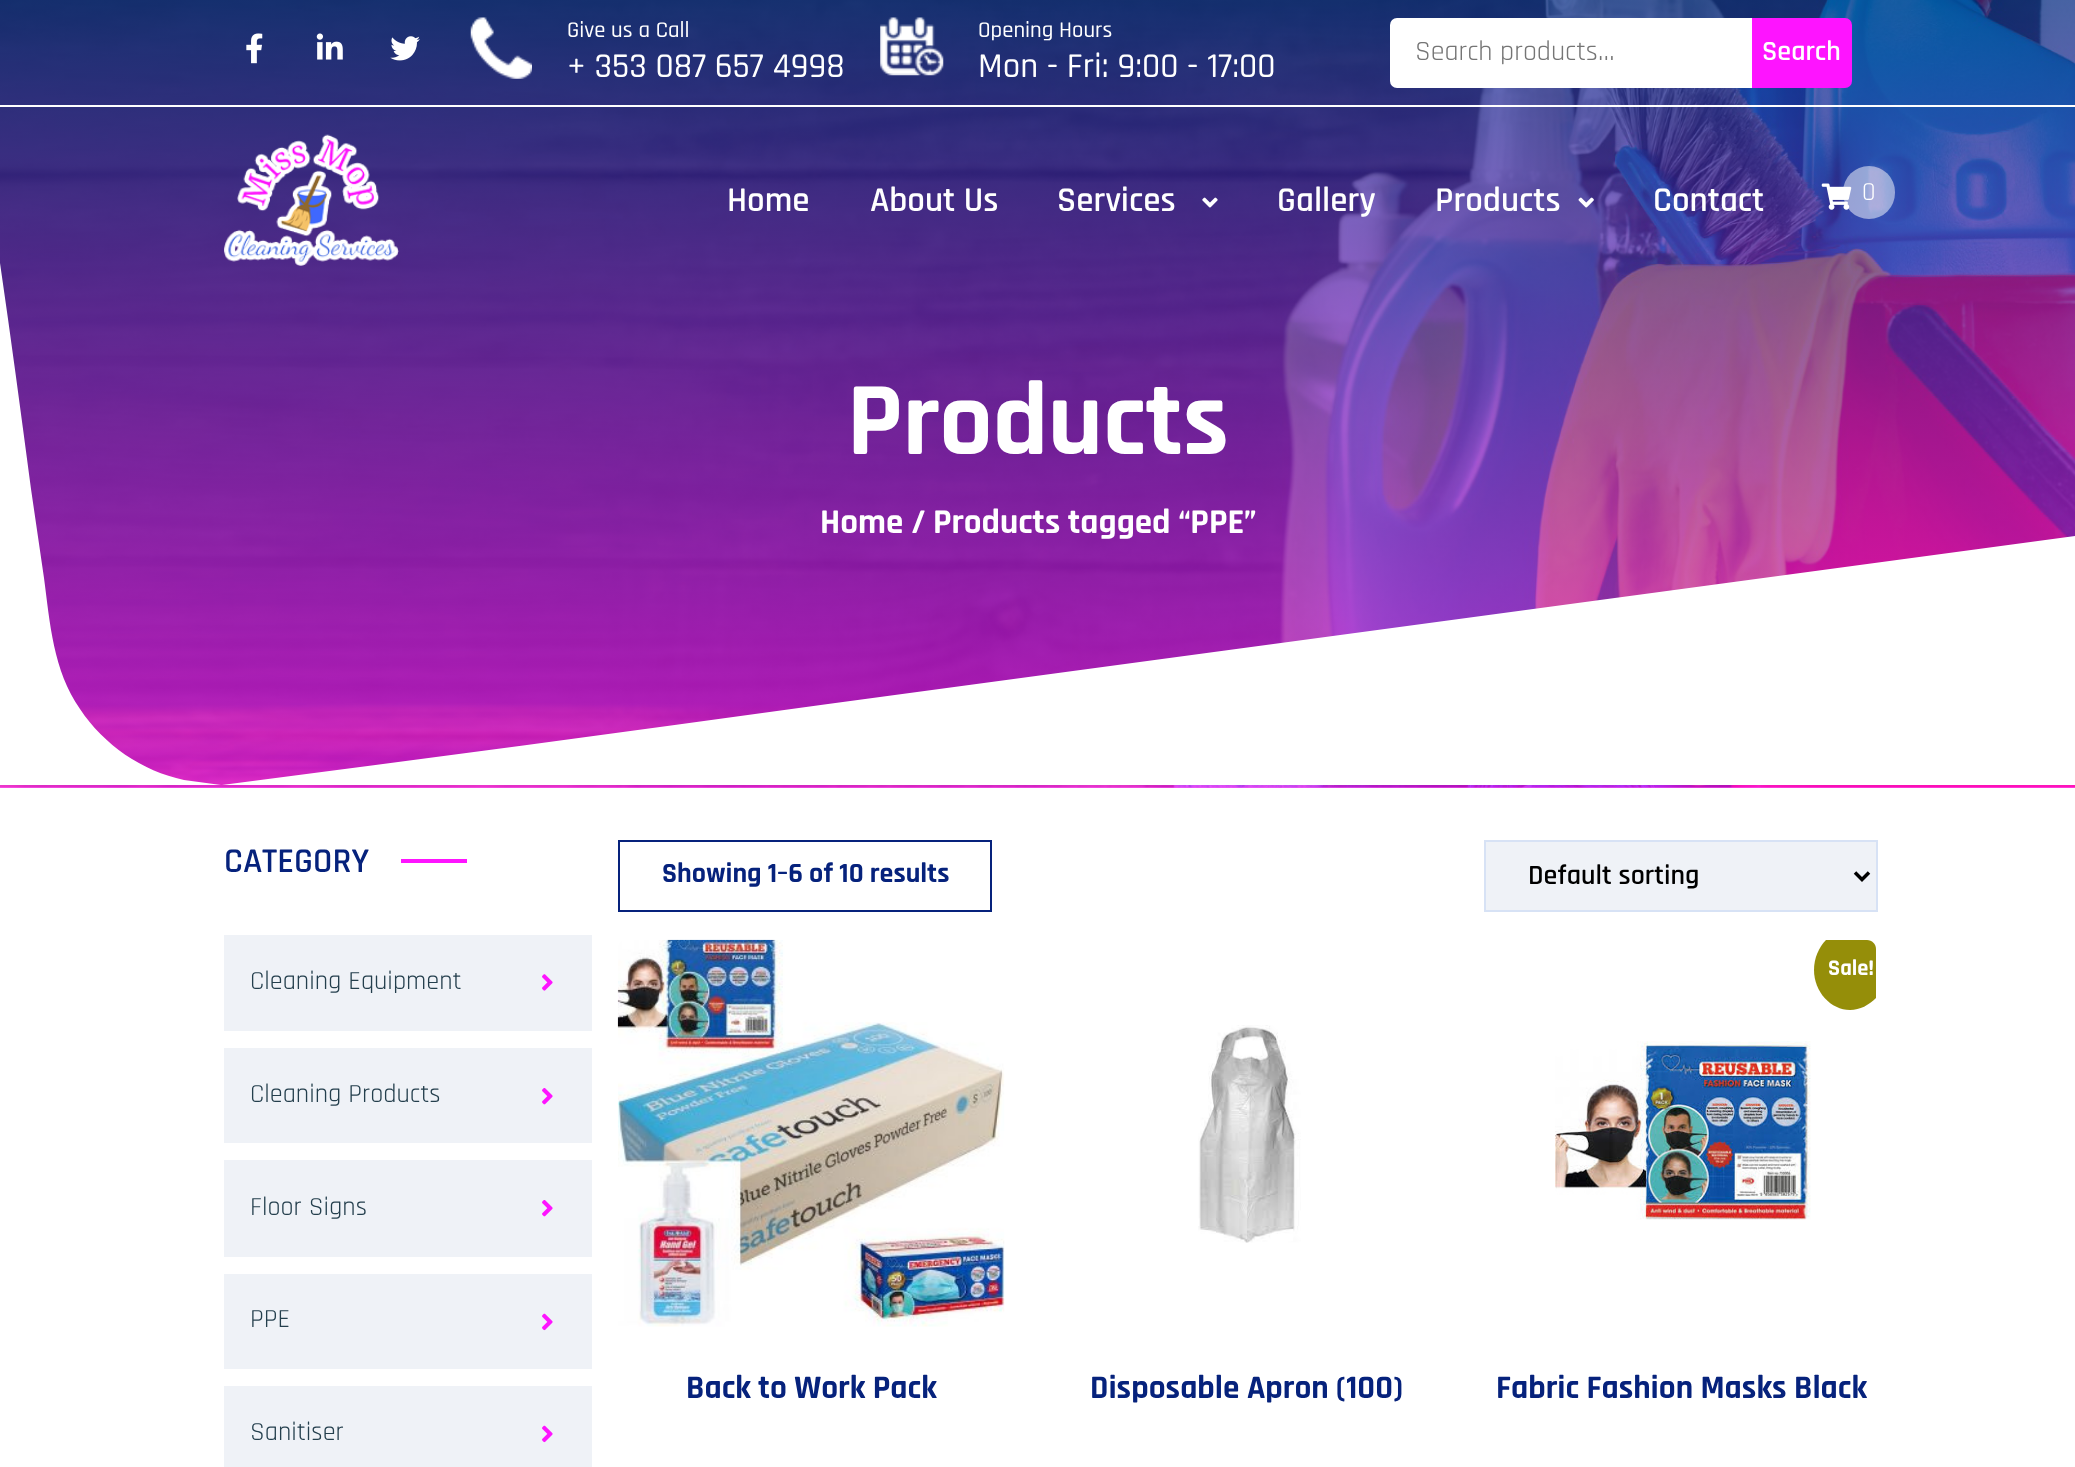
<!DOCTYPE html>
<meta charset="utf-8">
<style>body { margin: 0 } canvas { display: block }</style>
<canvas id="canvas" width="2075" height="1467"></canvas>
<script type="module">
  const canvas = document.getElementById("canvas");
  const ctx = canvas.getContext("2d");
  ctx.miterLimit = 4;
  ctx.fontKerning = "normal";
  async function loadImage(src) {
    const img = new Image();
    img.src = src;
    await img.decode();
    return img;
  }
  let gradient;

  ctx.fillStyle = "#ffffff";
  ctx.fillRect(0, 0, 2075, 1467);
  ctx.drawImage(await loadImage("img10.png"), 0, 0, 2075, 788);
  gradient = ctx.createLinearGradient(1038, 0, 1038, 788);
  gradient.addColorStop(0, "rgba(0, 41, 134, 0.7)");
  gradient.addColorStop(1, "rgba(254, 20, 255, 0.7)");
  ctx.fillStyle = gradient;
  ctx.fillRect(0, 0, 2075, 788);
  ctx.fillStyle = "#ffffff";
  ctx.fillRect(0, 105, 2075, 2);
  ctx.drawImage(await loadImage("img1.png"), 246, 33, 17, 31);
  ctx.drawImage(await loadImage("img2.png"), 316, 33, 27, 27);
  ctx.drawImage(await loadImage("img3.png"), 390, 36, 30, 25);
  ctx.drawImage(await loadImage("img4.png"), 470, 17, 62, 62);
  ctx.font = "500 22.75px Rajdhani";
  ctx.fillText("Give us a Call", 567, 37);
  ctx.font = "500 35px Rajdhani";
  ctx.fillText("+ 353 087 657 4998", 567, 77);
  ctx.drawImage(await loadImage("img5.png"), 880, 17, 64, 59);
  ctx.font = "500 22.75px Rajdhani";
  ctx.fillText("Opening Hours", 978, 37);
  ctx.font = "500 35px Rajdhani";
  ctx.fillText("Mon - Fri: 9:00 - 17:00", 978, 77);
  ctx.beginPath();
  ctx.roundRect(1390, 18, 364, 70, [7, 0, 0, 7]);
  ctx.fill();
  ctx.font = "28px Rajdhani";
  ctx.fillStyle = "#757575";
  ctx.fillText("Search products…", 1415, 60);
  ctx.fillStyle = "#fe14ff";
  ctx.beginPath();
  ctx.roundRect(1752, 18, 100, 70, [0, 7, 7, 0]);
  ctx.fill();
  ctx.font = "600 28px Rajdhani";
  ctx.fillStyle = "#ffffff";
  ctx.fillText("Search", 1762, 60);
  ctx.drawImage(await loadImage("img6.png"), 224, 134, 175, 132);
  ctx.font = "600 35px Rajdhani";
  ctx.fillText("Home", 727, 211);
  ctx.fillText("About Us", 870, 211);
  ctx.fillText("Services", 1057, 211);
  ctx.drawImage(await loadImage("img7.png"), 1202, 197, 16, 11);
  ctx.fillText("Gallery", 1277, 211);
  ctx.fillText("Products", 1435, 211);
  ctx.drawImage(await loadImage("img8.png"), 1578, 197, 16, 11);
  ctx.fillText("Contact", 1653, 211);
  ctx.drawImage(await loadImage("img9.png"), 1821, 183, 31, 27);
  ctx.fillStyle = "rgba(255, 255, 255, 0.5)";
  ctx.beginPath();
  ctx.roundRect(1843, 166, 52, 53, 26);
  ctx.fill();
  ctx.font = "26.25px Rajdhani";
  ctx.fillStyle = "#ffffff";
  ctx.fillText("0", 1862, 200);
  ctx.beginPath();
  ctx.moveTo(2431, 488);
  ctx.lineTo(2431, 785);
  ctx.lineTo(222, 785);
  ctx.bezierCurveTo(424, 759, 626, 732, 828, 704);
  ctx.closePath();
  ctx.fill();
  ctx.beginPath();
  ctx.moveTo(0, 263);
  ctx.bezierCurveTo(11, 338, 21, 414, 31, 489);
  ctx.lineTo(44, 578);
  ctx.bezierCurveTo(50, 623, 53, 670, 80, 709);
  ctx.bezierCurveTo(104, 745, 142, 771, 184, 780);
  ctx.lineTo(221, 785);
  ctx.lineTo(0, 785);
  ctx.closePath();
  ctx.fill();
  ctx.font = "bold 105px Rajdhani";
  ctx.fillText("Products", 847, 454);
  ctx.font = "bold 35px Rajdhani";
  ctx.fillText("Home / Products tagged “PPE”", 820, 533);
  ctx.font = "600 35px Rajdhani";
  ctx.fillStyle = "#06227c";
  ctx.fillText("CATEGORY", 224, 872);
  ctx.fillStyle = "#fe14ff";
  ctx.fillRect(401, 859, 66, 4);
  ctx.fillStyle = "#eff2f7";
  ctx.fillRect(224, 935, 368, 96);
  ctx.font = "26.25px Rajdhani";
  ctx.fillStyle = "#243f4d";
  ctx.fillText("Cleaning Equipment", 250, 989);
  ctx.drawImage(await loadImage("img11.png"), 542, 974, 11, 17);
  ctx.fillStyle = "#eff2f7";
  ctx.fillRect(224, 1048, 368, 95);
  ctx.fillStyle = "#243f4d";
  ctx.fillText("Cleaning Products", 250, 1102);
  ctx.drawImage(await loadImage("img12.png"), 542, 1088, 11, 17);
  ctx.fillStyle = "#eff2f7";
  ctx.fillRect(224, 1160, 368, 97);
  ctx.fillStyle = "#243f4d";
  ctx.fillText("Floor Signs", 250, 1215);
  ctx.drawImage(await loadImage("img12.png"), 542, 1200, 11, 17);
  ctx.fillStyle = "#eff2f7";
  ctx.fillRect(224, 1274, 368, 95);
  ctx.fillStyle = "#243f4d";
  ctx.fillText("PPE", 250, 1327);
  ctx.drawImage(await loadImage("img13.png"), 542, 1313, 11, 18);
  ctx.fillStyle = "#eff2f7";
  ctx.fillRect(224, 1386, 368, 81);
  ctx.fillStyle = "#243f4d";
  ctx.fillText("Sanitiser", 250, 1440);
  ctx.drawImage(await loadImage("img13.png"), 542, 1425, 11, 18);
  ctx.strokeStyle = "#06227c";
  ctx.lineWidth = 2;
  ctx.strokeRect(619, 841, 372, 70);
  ctx.font = "bold 28px Rajdhani";
  ctx.fillStyle = "#06227c";
  ctx.fillText("Showing 1–6 of 10 results", 662, 882);
  ctx.fillStyle = "#eff2f7";
  ctx.beginPath();
  ctx.rect(1485, 841, 392, 70);
  ctx.fill();
  ctx.strokeStyle = "#d7e2f5";
  ctx.stroke();
  ctx.beginPath();
  ctx.moveTo(1855, 872.5);
  ctx.lineTo(1862, 879.5);
  ctx.lineTo(1869, 872.5);
  ctx.strokeStyle = "#000000";
  ctx.lineWidth = 3.5;
  ctx.stroke();
  ctx.font = "600 28px Rajdhani";
  ctx.fillStyle = "#000000";
  ctx.fillText("Default sorting", 1528, 884);
  ctx.drawImage(await loadImage("img14.png"), 617, 939, 388, 388);
  ctx.font = "bold 33.25px Rajdhani";
  ctx.fillStyle = "#06227c";
  ctx.fillText("Back to Work Pack", 686, 1398);
  ctx.drawImage(await loadImage("img15.png"), 1198, 1025, 103, 218);
  ctx.fillText("Disposable Apron (100)", 1090, 1398);
  ctx.fillStyle = "#958e09";
  ctx.beginPath();
  ctx.moveTo(1826, 940);
  ctx.lineTo(1867, 940);
  ctx.bezierCurveTo(1872, 940, 1876, 944, 1876, 949);
  ctx.lineTo(1876, 998);
  ctx.bezierCurveTo(1869, 1005, 1860, 1010, 1850, 1010);
  ctx.bezierCurveTo(1831, 1010, 1814, 992, 1814, 970);
  ctx.bezierCurveTo(1814, 958, 1819, 947, 1826, 940);
  ctx.closePath();
  ctx.fill();
  ctx.font = "bold 22.5px Rajdhani";
  ctx.fillStyle = "#ffffff";
  ctx.fillText("Sale!", 1828, 975);
  ctx.drawImage(await loadImage("img16.png"), 1555, 1041, 256, 179);
  ctx.font = "bold 33.25px Rajdhani";
  ctx.fillStyle = "#06227c";
  ctx.fillText("Fabric Fashion Masks Black", 1496, 1398);
</script>
